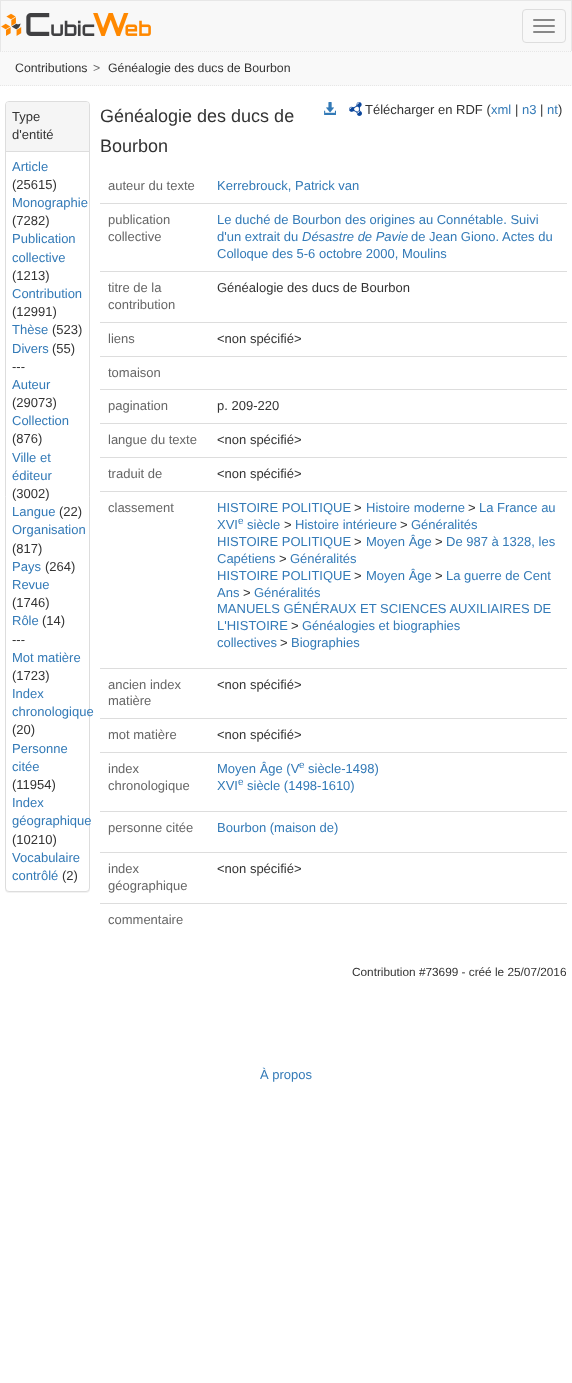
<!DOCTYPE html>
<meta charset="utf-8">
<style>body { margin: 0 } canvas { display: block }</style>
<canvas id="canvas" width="572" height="1383"></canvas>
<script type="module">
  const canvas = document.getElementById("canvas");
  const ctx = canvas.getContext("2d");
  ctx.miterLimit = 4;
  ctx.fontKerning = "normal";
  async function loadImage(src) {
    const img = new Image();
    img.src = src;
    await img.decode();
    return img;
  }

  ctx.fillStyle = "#ffffff";
  ctx.fillRect(0, 0, 572, 1383);
  ctx.fillStyle = "#f8f8f8";
  ctx.fillRect(1, 1, 570, 50);
  ctx.fillStyle = "#e7e7e7";
  ctx.fillRect(0, 0, 572, 1);
  ctx.fillRect(571, 0, 1, 51);
  ctx.fillRect(0, 0, 1, 51);
  ctx.drawImage(await loadImage("img1.png"), 1, 13, 150, 23);
  ctx.beginPath();
  ctx.roundRect(522.5, 9.5, 43, 33, 3.5);
  ctx.strokeStyle = "#dddddd";
  ctx.stroke();
  ctx.fillStyle = "#888888";
  ctx.beginPath();
  ctx.roundRect(533, 19, 22, 2, 1);
  ctx.fill();
  ctx.beginPath();
  ctx.roundRect(533, 25, 22, 2, 1);
  ctx.fill();
  ctx.beginPath();
  ctx.roundRect(533, 31, 22, 2, 1);
  ctx.fill();
  ctx.fillStyle = "#f9f9f9";
  ctx.fillRect(0, 51, 572, 35);
  ctx.beginPath();
  ctx.moveTo(0, 51.5);
  ctx.lineTo(572, 51.5);
  ctx.strokeStyle = "#e7e7e7";
  ctx.setLineDash([1, 1]);
  ctx.stroke();
  ctx.beginPath();
  ctx.moveTo(0, 85.5);
  ctx.lineTo(572, 85.5);
  ctx.stroke();
  ctx.font = "12.3px Liberation Sans";
  ctx.fillStyle = "#333333";
  ctx.fillText("Contributions", 15, 72);
  ctx.fillStyle = "#666666";
  ctx.fillText(">", 93, 72);
  ctx.fillStyle = "#333333";
  ctx.fillText("Généalogie des ducs de Bourbon", 108, 72);
  ctx.fillStyle = "rgba(0, 0, 0, 0.05)";
  ctx.filter = "blur(0.5px)";
  ctx.beginPath();
  ctx.roundRect(5, 102, 85, 791, 4);
  ctx.fill();
  ctx.filter = "none";
  ctx.fillStyle = "#ffffff";
  ctx.beginPath();
  ctx.roundRect(5.5, 101.5, 84, 790, 3.5);
  ctx.fill();
  ctx.strokeStyle = "#dddddd";
  ctx.setLineDash([]);
  ctx.stroke();
  ctx.fillStyle = "#f5f5f5";
  ctx.beginPath();
  ctx.roundRect(6, 102, 83, 50, [3, 3, 0, 0]);
  ctx.fill();
  ctx.fillStyle = "#dddddd";
  ctx.fillRect(6, 151, 83, 1);
  ctx.font = "13px Liberation Sans";
  ctx.fillStyle = "#333333";
  ctx.fillText("Type", 12, 121);
  ctx.fillText("d'entité", 12, 139);
  ctx.fillStyle = "#337ab7";
  ctx.fillText("Article", 12, 171);
  ctx.fillStyle = "#333333";
  ctx.fillText("(25615)", 12, 189);
  ctx.fillStyle = "#337ab7";
  ctx.fillText("Monographie", 12, 207);
  ctx.fillStyle = "#333333";
  ctx.fillText("(7282)", 12, 225);
  ctx.fillStyle = "#337ab7";
  ctx.fillText("Publication", 12, 243);
  ctx.fillText("collective", 12, 262);
  ctx.fillStyle = "#333333";
  ctx.fillText("(1213)", 12, 280);
  ctx.fillStyle = "#337ab7";
  ctx.fillText("Contribution", 12, 298);
  ctx.fillStyle = "#333333";
  ctx.fillText("(12991)", 12, 316);
  ctx.fillStyle = "#337ab7";
  ctx.fillText("Thèse", 12, 334);
  ctx.fillStyle = "#333333";
  ctx.fillText("(523)", 52, 334);
  ctx.fillStyle = "#337ab7";
  ctx.fillText("Divers", 12, 353);
  ctx.fillStyle = "#333333";
  ctx.fillText("(55)", 52, 353);
  ctx.fillText("---", 12, 371);
  ctx.fillStyle = "#337ab7";
  ctx.fillText("Auteur", 12, 389);
  ctx.fillStyle = "#333333";
  ctx.fillText("(29073)", 12, 407);
  ctx.fillStyle = "#337ab7";
  ctx.fillText("Collection", 12, 425);
  ctx.fillStyle = "#333333";
  ctx.fillText("(876)", 12, 443);
  ctx.fillStyle = "#337ab7";
  ctx.fillText("Ville et", 12, 462);
  ctx.fillText("éditeur", 12, 480);
  ctx.fillStyle = "#333333";
  ctx.fillText("(3002)", 12, 498);
  ctx.fillStyle = "#337ab7";
  ctx.fillText("Langue", 12, 516);
  ctx.fillStyle = "#333333";
  ctx.fillText("(22)", 59, 516);
  ctx.fillStyle = "#337ab7";
  ctx.fillText("Organisation", 12, 534);
  ctx.fillStyle = "#333333";
  ctx.fillText("(817)", 12, 553);
  ctx.fillStyle = "#337ab7";
  ctx.fillText("Pays", 12, 571);
  ctx.fillStyle = "#333333";
  ctx.fillText("(264)", 45, 571);
  ctx.fillStyle = "#337ab7";
  ctx.fillText("Revue", 12, 589);
  ctx.fillStyle = "#333333";
  ctx.fillText("(1746)", 12, 607);
  ctx.fillStyle = "#337ab7";
  ctx.fillText("Rôle", 12, 625);
  ctx.fillStyle = "#333333";
  ctx.fillText("(14)", 42, 625);
  ctx.fillText("---", 12, 644);
  ctx.fillStyle = "#337ab7";
  ctx.fillText("Mot matière", 12, 662);
  ctx.fillStyle = "#333333";
  ctx.fillText("(1723)", 12, 680);
  ctx.fillStyle = "#337ab7";
  ctx.fillText("Index", 12, 698);
  ctx.fillText("chronologique", 12, 716);
  ctx.fillStyle = "#333333";
  ctx.fillText("(20)", 12, 734);
  ctx.fillStyle = "#337ab7";
  ctx.fillText("Personne", 12, 753);
  ctx.fillText("citée", 12, 771);
  ctx.fillStyle = "#333333";
  ctx.fillText("(11954)", 12, 789);
  ctx.fillStyle = "#337ab7";
  ctx.fillText("Index", 12, 807);
  ctx.fillText("géographique", 12, 825);
  ctx.fillStyle = "#333333";
  ctx.fillText("(10210)", 12, 844);
  ctx.fillStyle = "#337ab7";
  ctx.fillText("Vocabulaire", 12, 862);
  ctx.fillText("contrôlé", 12, 880);
  ctx.fillStyle = "#333333";
  ctx.fillText("(2)", 62, 880);
  ctx.font = "18px Liberation Sans";
  ctx.fillText("Généalogie des ducs de", 100, 122);
  ctx.fillText("Bourbon", 100, 152);
  ctx.drawImage(await loadImage("img2.png"), 324, 102, 12, 13);
  ctx.drawImage(await loadImage("img3.png"), 349, 102, 13, 14);
  ctx.font = "13px Liberation Sans";
  ctx.fillText("Télécharger en RDF (", 365, 114);
  ctx.fillStyle = "#337ab7";
  ctx.fillText("xml", 491, 114);
  ctx.fillStyle = "#333333";
  ctx.fillText("|", 515, 114);
  ctx.fillStyle = "#337ab7";
  ctx.fillText("n3", 522, 114);
  ctx.fillStyle = "#333333";
  ctx.fillText("|", 540, 114);
  ctx.fillStyle = "#337ab7";
  ctx.fillText("nt", 547, 114);
  ctx.fillStyle = "#333333";
  ctx.fillText(")", 558, 114);
  ctx.fillStyle = "#666666";
  ctx.fillText("auteur du texte", 108, 190);
  ctx.fillStyle = "#337ab7";
  ctx.fillText("Kerrebrouck, Patrick van", 217, 190);
  ctx.fillStyle = "#666666";
  ctx.fillText("publication", 108, 224);
  ctx.fillText("collective", 108, 241);
  ctx.fillStyle = "#dddddd";
  ctx.fillRect(100, 203, 467, 1);
  ctx.fillStyle = "#337ab7";
  ctx.fillText("Le duché de Bourbon des origines au Connétable. Suivi", 217, 224);
  ctx.fillText("d'un extrait du", 217, 241);
  ctx.font = "italic 13px Liberation Sans";
  ctx.fillText("Désastre de Pavie", 302, 241);
  ctx.font = "13px Liberation Sans";
  ctx.fillText("de Jean Giono. Actes du", 411, 241);
  ctx.fillText("Colloque des 5-6 octobre 2000, Moulins", 217, 258);
  ctx.fillStyle = "#666666";
  ctx.fillText("titre de la", 108, 292);
  ctx.fillText("contribution", 108, 309);
  ctx.fillStyle = "#dddddd";
  ctx.fillRect(100, 271, 467, 1);
  ctx.fillStyle = "#333333";
  ctx.fillText("Généalogie des ducs de Bourbon", 217, 292);
  ctx.fillStyle = "#666666";
  ctx.fillText("liens", 108, 343);
  ctx.fillStyle = "#dddddd";
  ctx.fillRect(100, 322, 467, 1);
  ctx.fillStyle = "#333333";
  ctx.fillText("<non spécifié>", 217, 343);
  ctx.fillStyle = "#dddddd";
  ctx.fillRect(100, 356, 467, 1);
  ctx.fillStyle = "#666666";
  ctx.fillText("tomaison", 108, 377);
  ctx.fillText("pagination", 108, 410);
  ctx.fillStyle = "#dddddd";
  ctx.fillRect(100, 389, 467, 1);
  ctx.fillStyle = "#333333";
  ctx.fillText("p. 209-220", 217, 410);
  ctx.fillStyle = "#666666";
  ctx.fillText("langue du texte", 108, 444);
  ctx.fillStyle = "#dddddd";
  ctx.fillRect(100, 423, 467, 1);
  ctx.fillStyle = "#333333";
  ctx.fillText("<non spécifié>", 217, 444);
  ctx.fillStyle = "#666666";
  ctx.fillText("traduit de", 108, 478);
  ctx.fillStyle = "#dddddd";
  ctx.fillRect(100, 457, 467, 1);
  ctx.fillStyle = "#333333";
  ctx.fillText("<non spécifié>", 217, 478);
  ctx.fillStyle = "#666666";
  ctx.fillText("classement", 108, 512);
  ctx.fillStyle = "#dddddd";
  ctx.fillRect(100, 491, 467, 1);
  ctx.fillStyle = "#337ab7";
  ctx.fillText("HISTOIRE POLITIQUE", 217, 512);
  ctx.fillStyle = "#333333";
  ctx.fillText(">", 354, 512);
  ctx.fillStyle = "#337ab7";
  ctx.fillText("Histoire moderne", 366, 512);
  ctx.fillStyle = "#333333";
  ctx.fillText(">", 468, 512);
  ctx.fillStyle = "#337ab7";
  ctx.fillText("La France au", 479, 512);
  ctx.fillText("XVI", 217, 529);
  ctx.font = "10px Liberation Sans";
  ctx.fillText("e", 238, 524);
  ctx.font = "13px Liberation Sans";
  ctx.fillText("siècle", 247, 529);
  ctx.fillStyle = "#333333";
  ctx.fillText(">", 284, 529);
  ctx.fillStyle = "#337ab7";
  ctx.fillText("Histoire intérieure", 295, 529);
  ctx.fillStyle = "#333333";
  ctx.fillText(">", 400, 529);
  ctx.fillStyle = "#337ab7";
  ctx.fillText("Généralités", 411, 529);
  ctx.fillText("HISTOIRE POLITIQUE", 217, 546);
  ctx.fillStyle = "#333333";
  ctx.fillText(">", 354, 546);
  ctx.fillStyle = "#337ab7";
  ctx.fillText("Moyen Âge", 366, 546);
  ctx.fillStyle = "#333333";
  ctx.fillText(">", 435, 546);
  ctx.fillStyle = "#337ab7";
  ctx.fillText("De 987 à 1328, les", 446, 546);
  ctx.fillText("Capétiens", 217, 563);
  ctx.fillStyle = "#333333";
  ctx.fillText(">", 279, 563);
  ctx.fillStyle = "#337ab7";
  ctx.fillText("Généralités", 290, 563);
  ctx.fillText("HISTOIRE POLITIQUE", 217, 580);
  ctx.fillStyle = "#333333";
  ctx.fillText(">", 354, 580);
  ctx.fillStyle = "#337ab7";
  ctx.fillText("Moyen Âge", 366, 580);
  ctx.fillStyle = "#333333";
  ctx.fillText(">", 435, 580);
  ctx.fillStyle = "#337ab7";
  ctx.fillText("La guerre de Cent", 446, 580);
  ctx.fillText("Ans", 217, 597);
  ctx.fillStyle = "#333333";
  ctx.fillText(">", 243, 597);
  ctx.fillStyle = "#337ab7";
  ctx.fillText("Généralités", 254, 597);
  ctx.fillText("MANUELS GÉNÉRAUX ET SCIENCES AUXILIAIRES DE", 217, 613);
  ctx.fillText("L'HISTOIRE", 217, 630);
  ctx.fillStyle = "#333333";
  ctx.fillText(">", 291, 630);
  ctx.fillStyle = "#337ab7";
  ctx.fillText("Généalogies et biographies", 302, 630);
  ctx.fillText("collectives", 217, 647);
  ctx.fillStyle = "#333333";
  ctx.fillText(">", 280, 647);
  ctx.fillStyle = "#337ab7";
  ctx.fillText("Biographies", 291, 647);
  ctx.fillStyle = "#666666";
  ctx.fillText("ancien index", 108, 689);
  ctx.fillText("matière", 108, 705);
  ctx.fillStyle = "#dddddd";
  ctx.fillRect(100, 668, 467, 1);
  ctx.fillStyle = "#333333";
  ctx.fillText("<non spécifié>", 217, 689);
  ctx.fillStyle = "#666666";
  ctx.fillText("mot matière", 108, 739);
  ctx.fillStyle = "#dddddd";
  ctx.fillRect(100, 718, 467, 1);
  ctx.fillStyle = "#333333";
  ctx.fillText("<non spécifié>", 217, 739);
  ctx.fillStyle = "#666666";
  ctx.fillText("index", 108, 773);
  ctx.fillText("chronologique", 108, 790);
  ctx.fillStyle = "#dddddd";
  ctx.fillRect(100, 752, 467, 1);
  ctx.fillStyle = "#337ab7";
  ctx.fillText("Moyen Âge (V", 217, 773);
  ctx.font = "10px Liberation Sans";
  ctx.fillText("e", 299, 768);
  ctx.font = "13px Liberation Sans";
  ctx.fillText("siècle-1498)", 308, 773);
  ctx.fillText("XVI", 217, 790);
  ctx.font = "10px Liberation Sans";
  ctx.fillText("e", 238, 785);
  ctx.font = "13px Liberation Sans";
  ctx.fillText("siècle (1498-1610)", 247, 790);
  ctx.fillStyle = "#666666";
  ctx.fillText("personne citée", 108, 832);
  ctx.fillStyle = "#dddddd";
  ctx.fillRect(100, 811, 467, 1);
  ctx.fillStyle = "#337ab7";
  ctx.fillText("Bourbon (maison de)", 217, 832);
  ctx.fillStyle = "#666666";
  ctx.fillText("index", 108, 873);
  ctx.fillText("géographique", 108, 890);
  ctx.fillStyle = "#dddddd";
  ctx.fillRect(100, 852, 467, 1);
  ctx.fillStyle = "#333333";
  ctx.fillText("<non spécifié>", 217, 873);
  ctx.fillStyle = "#dddddd";
  ctx.fillRect(100, 903, 467, 1);
  ctx.fillStyle = "#666666";
  ctx.fillText("commentaire", 108, 924);
  ctx.font = "11.8px Liberation Sans";
  ctx.fillStyle = "#333333";
  ctx.fillText("Contribution #73699 - créé le 25/07/2016", 352, 976);
  ctx.font = "13px Liberation Sans";
  ctx.fillStyle = "#337ab7";
  ctx.fillText("À propos", 260, 1079);
</script>
